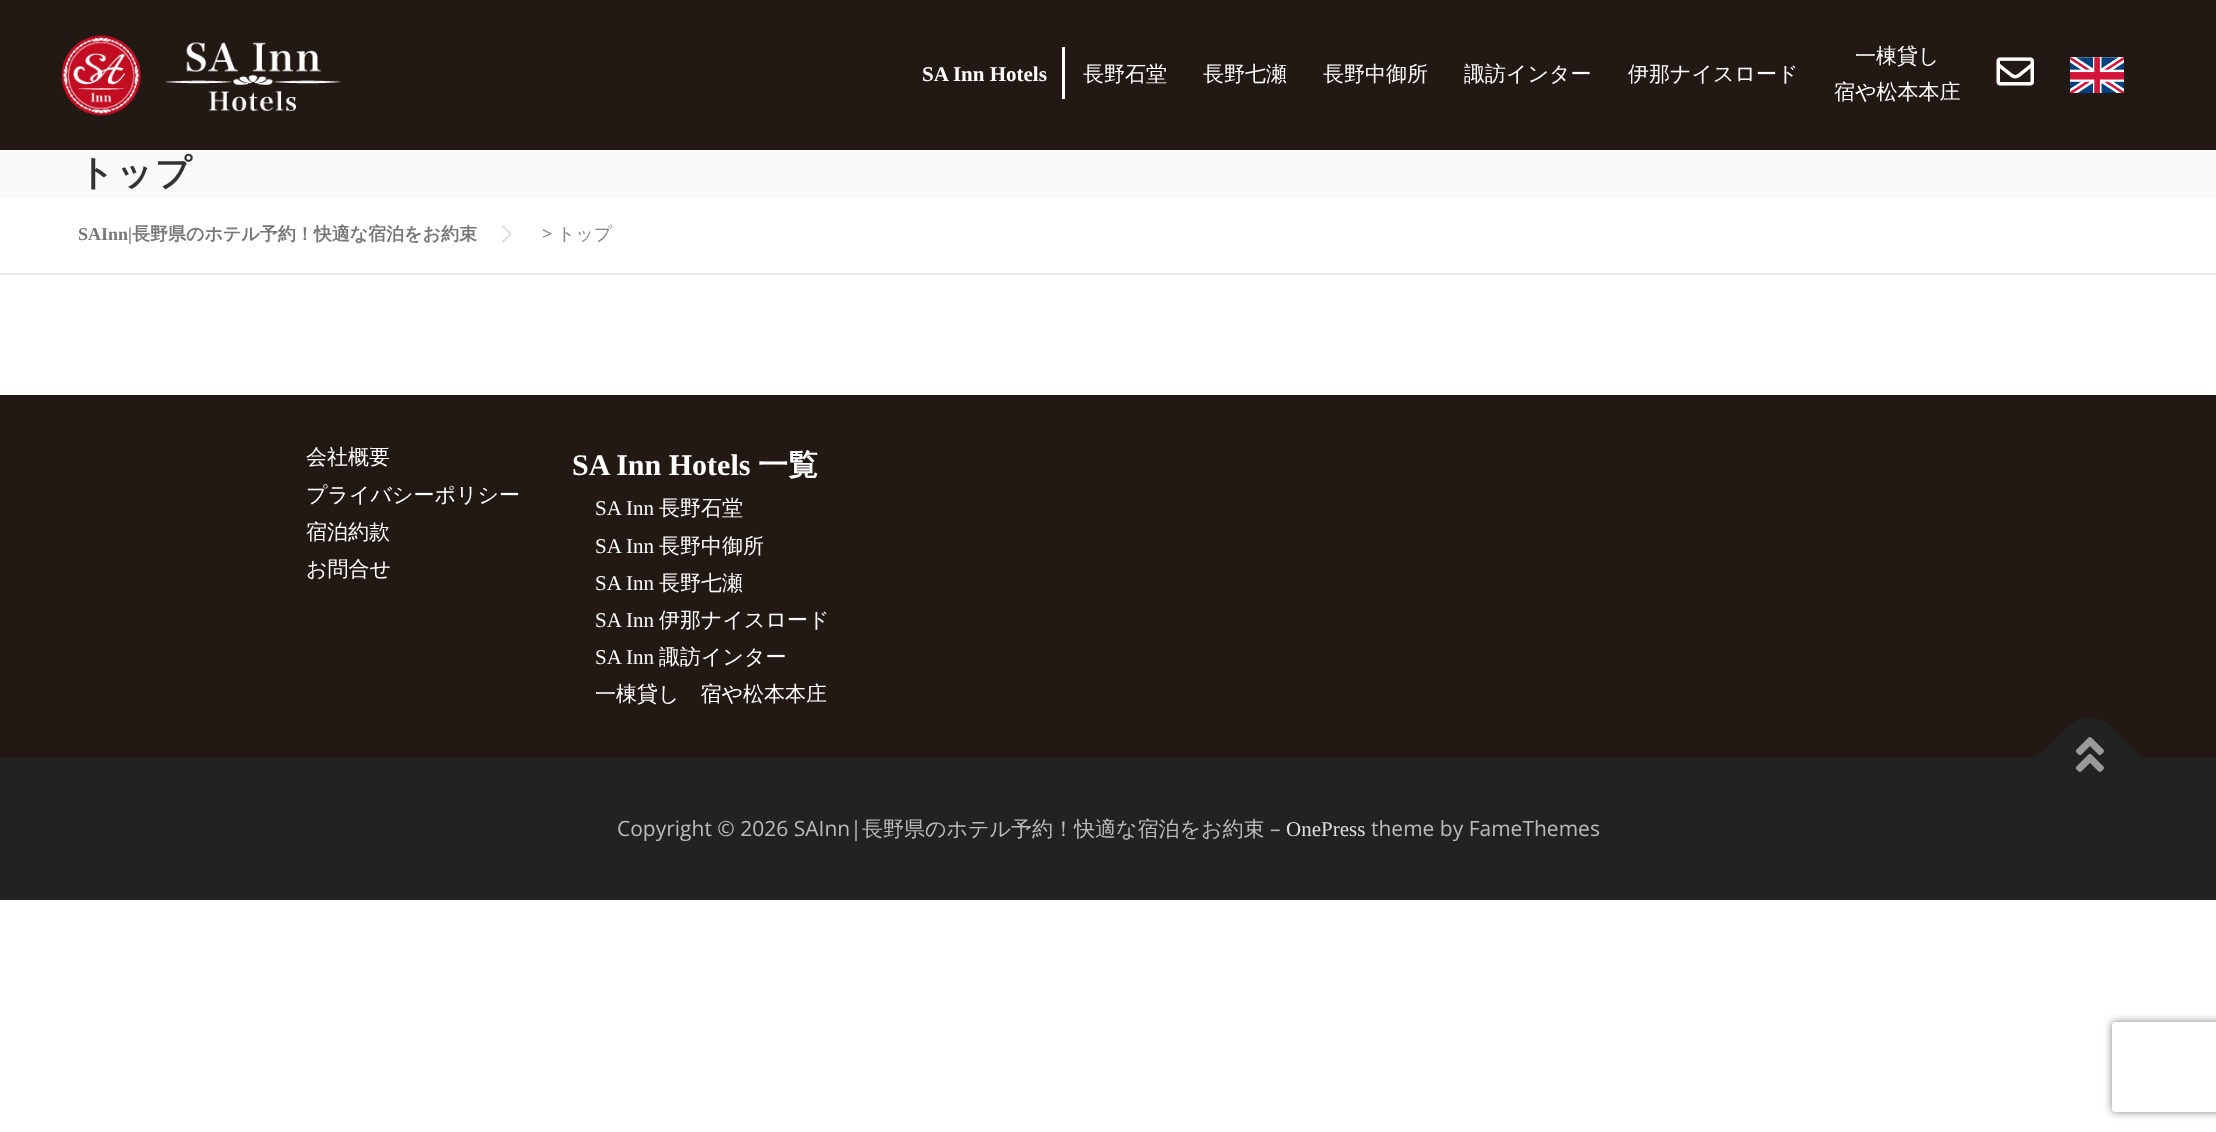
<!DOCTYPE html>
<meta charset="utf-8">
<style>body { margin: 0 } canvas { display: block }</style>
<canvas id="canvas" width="2216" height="1132"></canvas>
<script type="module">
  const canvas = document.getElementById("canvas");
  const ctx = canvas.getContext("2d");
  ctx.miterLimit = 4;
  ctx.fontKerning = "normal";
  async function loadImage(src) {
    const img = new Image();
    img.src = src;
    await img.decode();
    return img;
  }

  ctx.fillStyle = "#ffffff";
  ctx.fillRect(0, 0, 2216, 1132);
  ctx.fillStyle = "#221814";
  ctx.fillRect(0, 0, 2216, 150);
  ctx.drawImage(await loadImage("img1.png"), 61, 35, 280, 81);
  ctx.font = "bold 21px Liberation Serif";
  ctx.fillStyle = "#ffffff";
  ctx.fillText("SA Inn Hotels", 922, 81);
  ctx.fillRect(1062, 47, 3, 52);
  ctx.font = "500 21px WenQuanYi Zen Hei";
  ctx.fillText("長野石堂", 1083, 81);
  ctx.fillText("長野七瀬", 1203, 81);
  ctx.fillText("長野中御所", 1323, 81);
  ctx.fillText("諏訪インター", 1464, 81);
  ctx.fillText("伊那ナイスロード", 1628, 81);
  ctx.fillText("一棟貸し", 1855, 63);
  ctx.fillText("宿や松本本庄", 1834, 99);
  ctx.drawImage(await loadImage("img2.png"), 1996, 57, 38, 29);
  ctx.drawImage(await loadImage("img3.png"), 2070, 57, 54, 36);
  ctx.fillStyle = "#f8f9f9";
  ctx.fillRect(0, 150, 2216, 47);
  ctx.letterSpacing = "1.5px";
  ctx.font = "bold 36px WenQuanYi Zen Hei";
  ctx.fillStyle = "#333333";
  ctx.fillText("トップ", 78, 185);
  ctx.fillStyle = "#e9e9e9";
  ctx.fillRect(0, 273, 2216, 2);
  ctx.letterSpacing = "0px";
  ctx.font = "bold 18px WenQuanYi Zen Hei";
  ctx.fillStyle = "#777777";
  ctx.fillText("長野県のホテル予約！快適な宿泊をお約束", 132, 240);
  ctx.fillStyle = "#cccccc";
  ctx.beginPath();
  ctx.moveTo(502.5, 243);
  ctx.lineTo(502.5, 225);
  ctx.lineTo(511.5, 234);
  ctx.closePath();
  ctx.fill();
  ctx.font = "bold 18px Liberation Serif";
  ctx.fillStyle = "#777777";
  ctx.fillText("SAInn|", 78, 240);
  ctx.fillStyle = "#ffffff";
  ctx.beginPath();
  ctx.moveTo(502.5, 241.5);
  ctx.lineTo(502.5, 226.5);
  ctx.lineTo(510, 234);
  ctx.closePath();
  ctx.fill();
  ctx.font = "18px Open Sans";
  ctx.fillStyle = "#858585";
  ctx.fillText(">", 542, 240);
  ctx.font = "500 18px WenQuanYi Zen Hei";
  ctx.fillText("トップ", 557, 240);
  ctx.fillStyle = "#221814";
  ctx.fillRect(0, 395, 2216, 363);
  ctx.font = "500 21px WenQuanYi Zen Hei";
  ctx.fillStyle = "#ffffff";
  ctx.fillText("会社概要", 306, 464);
  ctx.fillText("プライバシーポリシー", 306, 502);
  ctx.fillText("宿泊約款", 306, 539);
  ctx.fillText("お問合せ", 306, 576);
  ctx.font = "bold 30px Liberation Serif";
  ctx.fillText("SA Inn Hotels", 572, 475);
  ctx.font = "bold 30px WenQuanYi Zen Hei";
  ctx.fillText("一覧", 758, 475);
  ctx.font = "21px Liberation Serif";
  ctx.fillText("SA Inn", 595, 515);
  ctx.font = "500 21px WenQuanYi Zen Hei";
  ctx.fillText("長野石堂", 659, 515);
  ctx.font = "21px Liberation Serif";
  ctx.fillText("SA Inn", 595, 553);
  ctx.font = "500 21px WenQuanYi Zen Hei";
  ctx.fillText("長野中御所", 659, 553);
  ctx.font = "21px Liberation Serif";
  ctx.fillText("SA Inn", 595, 590);
  ctx.font = "500 21px WenQuanYi Zen Hei";
  ctx.fillText("長野七瀬", 659, 590);
  ctx.font = "21px Liberation Serif";
  ctx.fillText("SA Inn", 595, 627);
  ctx.font = "500 21px WenQuanYi Zen Hei";
  ctx.fillText("伊那ナイスロード", 659, 627);
  ctx.font = "21px Liberation Serif";
  ctx.fillText("SA Inn", 595, 664);
  ctx.font = "500 21px WenQuanYi Zen Hei";
  ctx.fillText("諏訪インター", 659, 664);
  ctx.fillText("一棟貸し　宿や松本本庄", 595, 701);
  ctx.fillStyle = "#222222";
  ctx.fillRect(0, 758, 2216, 142);
  ctx.beginPath();
  ctx.moveTo(2036, 758);
  ctx.lineTo(2068, 726);
  ctx.bezierCurveTo(2080, 715, 2099, 715, 2111, 726);
  ctx.lineTo(2143, 758);
  ctx.lineTo(2090, 811);
  ctx.closePath();
  ctx.fill();
  ctx.drawImage(await loadImage("img4.png"), 2075, 737, 29, 35);
  ctx.font = "21px Open Sans";
  ctx.fillStyle = "#bbbbbb";
  ctx.fillText("Copyright © 2026 SAInn|", 617, 836);
  ctx.font = "500 21px WenQuanYi Zen Hei";
  ctx.fillText("長野県のホテル予約！快適な宿泊をお約束", 862, 836);
  ctx.font = "21px Open Sans";
  ctx.fillText("–", 1270, 836);
  ctx.font = "21px Liberation Serif";
  ctx.fillStyle = "#dddddd";
  ctx.fillText("OnePress", 1286, 836);
  ctx.font = "21px Open Sans";
  ctx.fillStyle = "#bbbbbb";
  ctx.fillText("theme by FameThemes", 1371, 836);
  ctx.save();
  ctx.beginPath();
  ctx.moveTo(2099, 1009);
  ctx.lineTo(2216, 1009);
  ctx.lineTo(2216, 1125);
  ctx.lineTo(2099, 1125);
  ctx.closePath();
  ctx.moveTo(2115, 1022);
  ctx.lineTo(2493, 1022);
  ctx.bezierCurveTo(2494.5, 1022, 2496, 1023.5, 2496, 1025);
  ctx.lineTo(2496, 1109);
  ctx.bezierCurveTo(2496, 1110.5, 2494.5, 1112, 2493, 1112);
  ctx.lineTo(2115, 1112);
  ctx.bezierCurveTo(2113.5, 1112, 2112, 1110.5, 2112, 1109);
  ctx.lineTo(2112, 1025);
  ctx.bezierCurveTo(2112, 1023.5, 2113.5, 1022, 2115, 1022);
  ctx.closePath();
  ctx.clip("evenodd");
  ctx.fillStyle = "#808080";
  ctx.filter = "blur(4px)";
  ctx.beginPath();
  ctx.roundRect(2112, 1022, 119, 90, 3);
  ctx.fill();
  ctx.filter = "none";
  ctx.restore();
</script>
